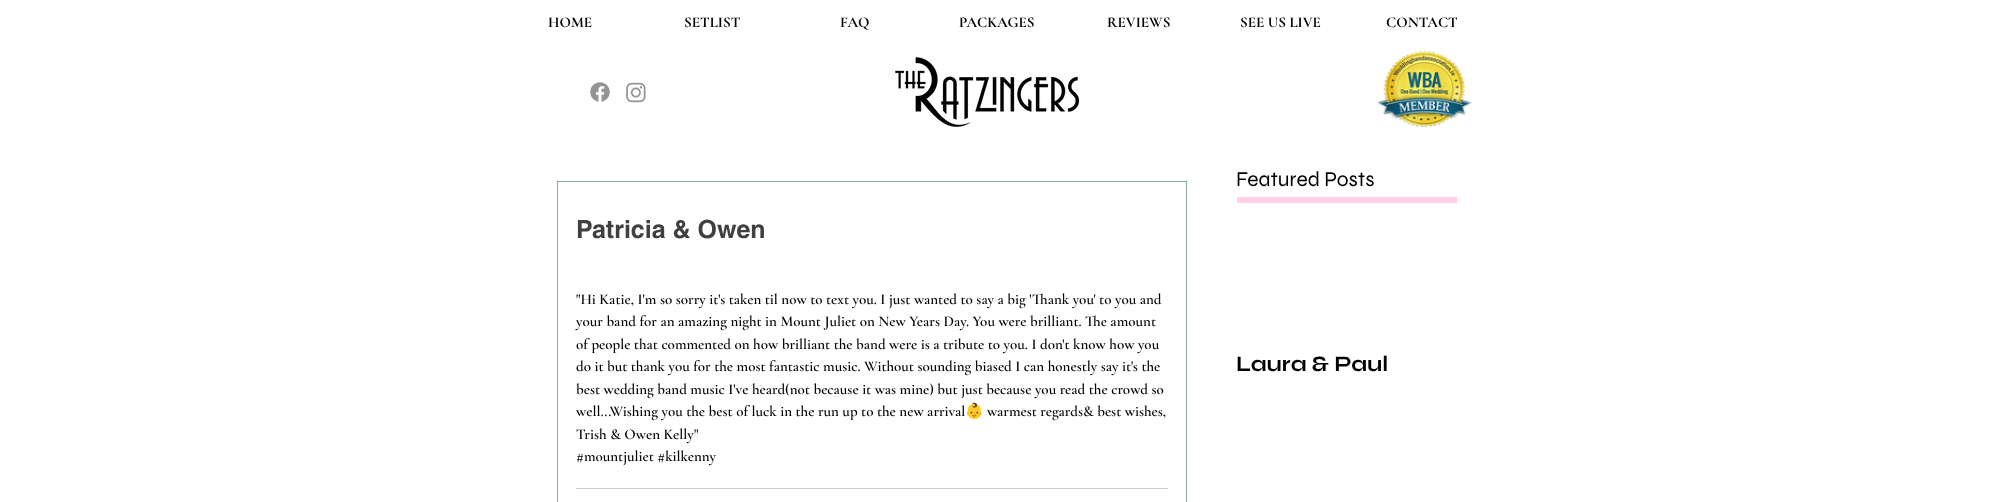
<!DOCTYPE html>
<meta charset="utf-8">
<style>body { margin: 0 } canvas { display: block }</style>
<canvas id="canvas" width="1993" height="502"></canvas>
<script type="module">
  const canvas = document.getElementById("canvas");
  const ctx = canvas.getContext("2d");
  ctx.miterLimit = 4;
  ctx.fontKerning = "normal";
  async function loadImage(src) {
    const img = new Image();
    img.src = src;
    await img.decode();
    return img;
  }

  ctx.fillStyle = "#ffffff";
  ctx.fillRect(0, 0, 1993, 502);
  ctx.font = "bold 15px Cormorant Garamond";
  ctx.fillStyle = "#000000";
  ctx.fillText("HOME", 548, 27);
  ctx.fillText("SETLIST", 684, 27);
  ctx.fillText("FAQ", 840, 27);
  ctx.fillText("PACKAGES", 959, 27);
  ctx.fillText("REVIEWS", 1107, 27);
  ctx.fillText("SEE US LIVE", 1240, 27);
  ctx.fillText("CONTACT", 1386, 27);
  ctx.drawImage(await loadImage("img1.png"), 590, 82, 20, 20);
  ctx.drawImage(await loadImage("img2.png"), 626, 82, 20, 21);
  ctx.drawImage(await loadImage("img3.png"), 895, 57, 185, 70);
  ctx.drawImage(await loadImage("img4.png"), 1378, 50, 94, 78);
  ctx.font = "21px Syne";
  ctx.fillText("Featured Posts", 1236, 186);
  ctx.fillStyle = "#ffd1ea";
  ctx.fillRect(1237, 197, 220, 6);
  ctx.strokeStyle = "#8baa95";
  ctx.strokeRect(557.5, 181.5, 629, 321);
  ctx.font = "bold 25px helvetica";
  ctx.fillStyle = "#404040";
  ctx.fillText("Patricia & Owen", 576, 238);
  ctx.font = "600 15px Cormorant Garamond";
  ctx.fillStyle = "#000000";
  ctx.fillText("\"Hi Katie, I'm so sorry it's taken til now to text you. I just wanted to say a big 'Thank you' to you and", 576, 304);
  ctx.fillText("your band for an amazing night in Mount Juliet on New Years Day. You were brilliant. The amount", 576, 326);
  ctx.fillText("of people that commented on how brilliant the band were is a tribute to you. I don't know how you", 576, 349);
  ctx.fillText("do it but thank you for the most fantastic music. Without sounding biased I can honestly say it's the", 576, 371);
  ctx.fillText("best wedding band music I've heard(not because it was mine) but just because you read the crowd so", 576, 394);
  ctx.fillText("well...Wishing you the best of luck in the run up to the new arrival", 576, 416);
  ctx.font = "15px Noto Color Emoji";
  ctx.fillText("👶", 965, 416);
  ctx.font = "600 15px Cormorant Garamond";
  ctx.fillText("warmest regards& best wishes,", 987, 416);
  ctx.fillText("Trish & Owen Kelly\"", 576, 439);
  ctx.fillText("#mountjuliet #kilkenny", 576, 461);
  ctx.fillStyle = "#cccccc";
  ctx.fillRect(576, 488, 592, 1);
  ctx.font = "bold 22px Syne";
  ctx.fillStyle = "#000000";
  ctx.fillText("Laura & Paul", 1236, 371);
</script>
